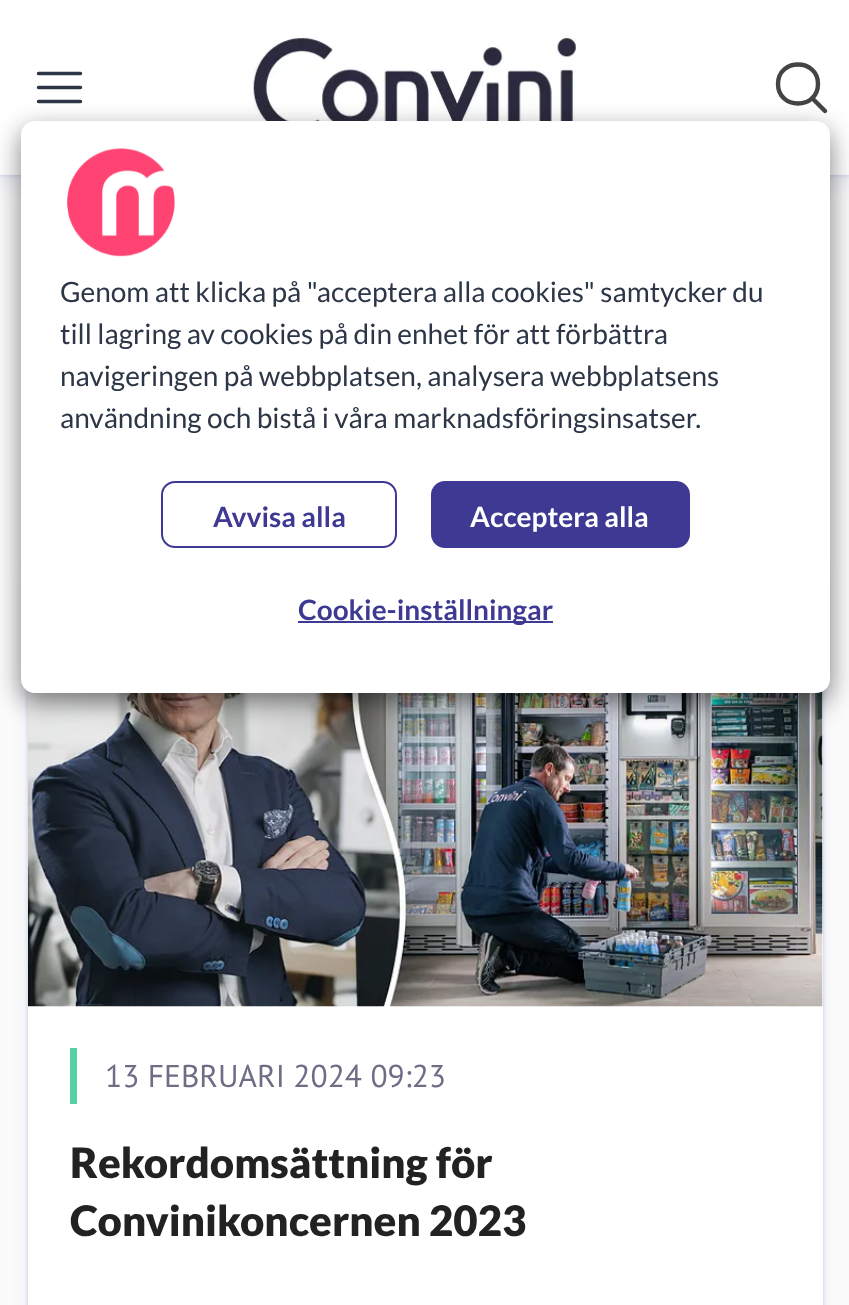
<!DOCTYPE html>
<meta charset="utf-8">
<style>body { margin: 0 } canvas { display: block }</style>
<canvas id="canvas" width="849" height="1305"></canvas>
<script type="module">
  const canvas = document.getElementById("canvas");
  const ctx = canvas.getContext("2d");
  ctx.miterLimit = 4;
  ctx.fontKerning = "normal";
  async function loadImage(src) {
    const img = new Image();
    img.src = src;
    await img.decode();
    return img;
  }

  ctx.fillStyle = "#fbfbfb";
  ctx.fillRect(0, 0, 849, 1305);
  ctx.fillStyle = "rgba(49, 73, 164, 0.14)";
  ctx.filter = "blur(2px)";
  ctx.beginPath();
  ctx.rect(0, 0, 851, 175);
  ctx.fill();
  ctx.filter = "none";
  ctx.fillStyle = "rgba(49, 73, 164, 0.1)";
  ctx.filter = "blur(2.5px)";
  ctx.beginPath();
  ctx.rect(0, 0, 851, 175);
  ctx.fill();
  ctx.filter = "none";
  ctx.fillStyle = "rgba(49, 73, 164, 0.08)";
  ctx.filter = "blur(9px)";
  ctx.beginPath();
  ctx.rect(0, 11, 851, 175);
  ctx.fill();
  ctx.filter = "none";
  ctx.fillStyle = "#ffffff";
  ctx.fillRect(0, 0, 849, 175);
  ctx.beginPath();
  ctx.moveTo(38.5, 87.5);
  ctx.lineTo(80.5, 87.5);
  ctx.moveTo(38.5, 73.5);
  ctx.lineTo(80.5, 73.5);
  ctx.moveTo(38.5, 101.5);
  ctx.lineTo(80.5, 101.5);
  ctx.strokeStyle = "#2c3647";
  ctx.lineWidth = 3.5;
  ctx.lineCap = "round";
  ctx.lineJoin = "round";
  ctx.stroke();
  ctx.drawImage(await loadImage("img1.png"), 253, 37, 323, 84);
  ctx.beginPath();
  ctx.moveTo(818, 84);
  ctx.bezierCurveTo(818, 110, 778, 110, 778, 84);
  ctx.bezierCurveTo(778, 58, 818, 58, 818, 84);
  ctx.closePath();
  ctx.moveTo(825, 111);
  ctx.lineTo(812, 98);
  ctx.strokeStyle = "#444444";
  ctx.lineWidth = 4.4;
  ctx.lineJoin = "miter";
  ctx.stroke();
  ctx.fillStyle = "rgba(49, 73, 164, 0.14)";
  ctx.filter = "blur(2px)";
  ctx.beginPath();
  ctx.roundRect(28, 560, 795, 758, 7);
  ctx.fill();
  ctx.filter = "none";
  ctx.fillStyle = "rgba(49, 73, 164, 0.1)";
  ctx.filter = "blur(2.5px)";
  ctx.beginPath();
  ctx.roundRect(28, 560, 795, 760, 7);
  ctx.fill();
  ctx.filter = "none";
  ctx.fillStyle = "rgba(49, 73, 164, 0.08)";
  ctx.filter = "blur(9px)";
  ctx.beginPath();
  ctx.roundRect(28, 571, 795, 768, 7);
  ctx.fill();
  ctx.filter = "none";
  ctx.fillStyle = "#ffffff";
  ctx.fillRect(822, 691, 1, 315);
  ctx.fillRect(28, 1006, 795, 299);
  ctx.drawImage(await loadImage("img3.png"), 28, 691, 795, 316);
  ctx.drawImage(await loadImage("img4.png"), 28, 691, 795, 316);
  ctx.fillStyle = "rgba(0, 0, 0, 0.5)";
  ctx.filter = "blur(13px)";
  ctx.beginPath();
  ctx.roundRect(21, 130, 809, 572, 14);
  ctx.fill();
  ctx.filter = "none";
  ctx.fillStyle = "#ffffff";
  ctx.beginPath();
  ctx.roundRect(21, 121, 809, 572, 14);
  ctx.fill();
  ctx.drawImage(await loadImage("img2.png"), 67, 148, 108, 109);
  ctx.font = "28px Lato";
  ctx.fillStyle = "#2c3647";
  ctx.fillText("Genom att klicka på \"acceptera alla cookies\" samtycker du", 60, 302);
  ctx.fillText("till lagring av cookies på din enhet för att förbättra", 60, 344);
  ctx.fillText("navigeringen på webbplatsen, analysera webbplatsens", 60, 386);
  ctx.fillText("användning och bistå i våra marknadsföringsinsatser.", 60, 428);
  ctx.beginPath();
  ctx.roundRect(162, 482, 234, 65, 13);
  ctx.strokeStyle = "#3e3a93";
  ctx.lineWidth = 2;
  ctx.stroke();
  ctx.font = "bold 28px Lato";
  ctx.fillStyle = "#3e3a93";
  ctx.fillText("Avvisa alla", 213, 527);
  ctx.beginPath();
  ctx.roundRect(432, 482, 257, 65, 13);
  ctx.fill();
  ctx.stroke();
  ctx.fillStyle = "#ffffff";
  ctx.fillText("Acceptera alla", 470, 527);
  ctx.fillStyle = "#3e3a93";
  ctx.fillRect(298, 621, 255, 2);
  ctx.fillText("Cookie-inställningar", 298, 620);
  ctx.fillStyle = "#56d1a4";
  ctx.fillRect(70, 1048, 7, 56);
  ctx.font = "31.5px PT Sans";
  ctx.fillStyle = "#6e6d86";
  ctx.fillText("13 FEBRUARI 2024 09:23", 105, 1087);
  ctx.font = "900 42px Lato";
  ctx.fillStyle = "#222222";
  ctx.fillText("Rekordomsättning för", 70, 1178);
  ctx.fillText("Convinikoncernen 2023", 70, 1236);
</script>
